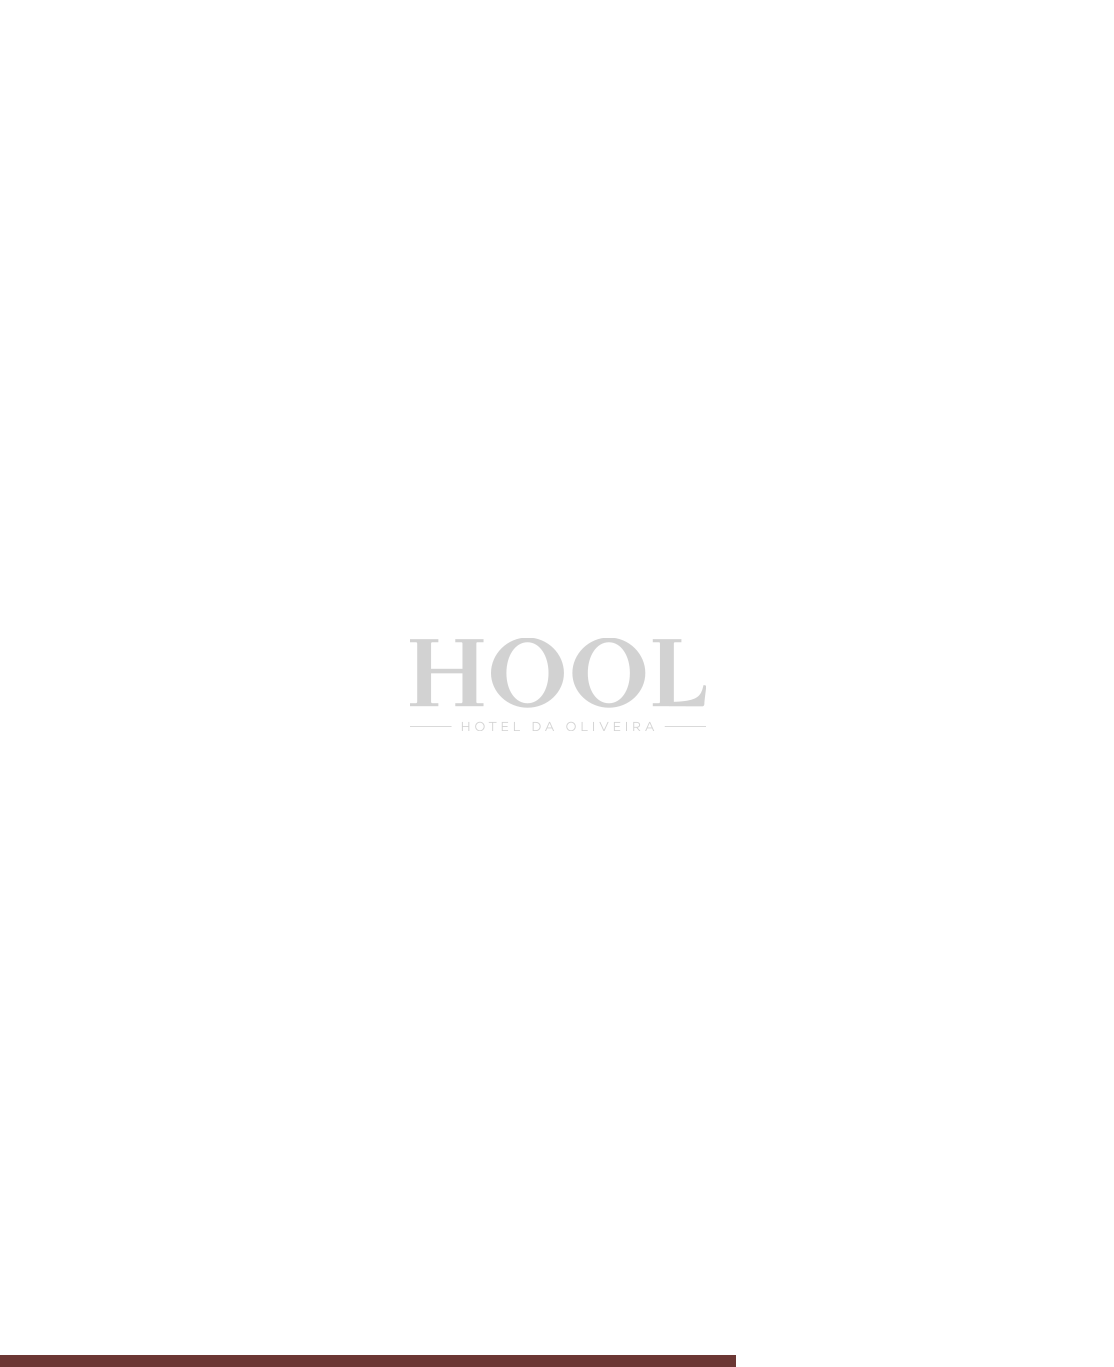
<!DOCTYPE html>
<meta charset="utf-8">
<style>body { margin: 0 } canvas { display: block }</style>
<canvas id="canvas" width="1114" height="1367"></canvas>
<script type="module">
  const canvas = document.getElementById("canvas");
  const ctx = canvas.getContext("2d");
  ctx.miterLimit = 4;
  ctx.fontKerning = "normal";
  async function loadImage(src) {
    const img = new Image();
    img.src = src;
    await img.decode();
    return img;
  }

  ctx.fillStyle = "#ffffff";
  ctx.fillRect(0, 0, 1114, 1367);
  ctx.drawImage(await loadImage("img1.png"), 410, 638, 296, 93);
  ctx.fillStyle = "#6c3734";
  ctx.fillRect(0, 1355, 736, 12);
</script>
